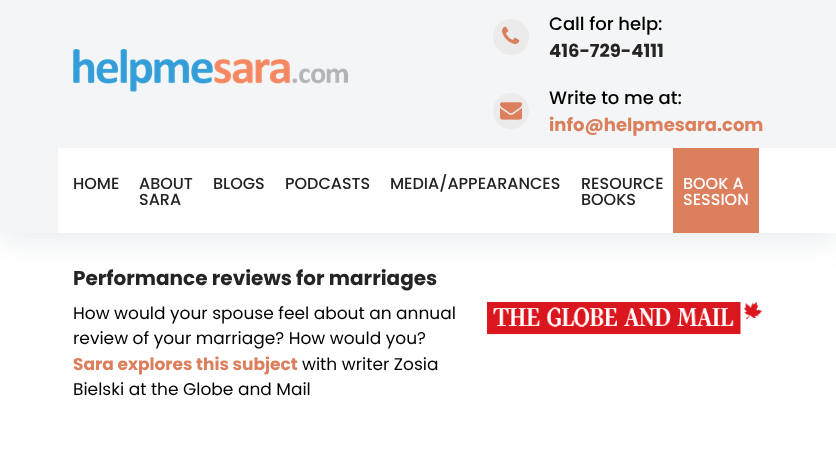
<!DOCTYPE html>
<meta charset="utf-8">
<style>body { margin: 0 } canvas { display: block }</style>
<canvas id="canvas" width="836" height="452"></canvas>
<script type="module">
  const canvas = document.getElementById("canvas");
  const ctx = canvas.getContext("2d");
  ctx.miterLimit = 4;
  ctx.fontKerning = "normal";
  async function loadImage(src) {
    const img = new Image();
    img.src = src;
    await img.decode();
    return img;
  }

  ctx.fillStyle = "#ffffff";
  ctx.fillRect(0, 0, 836, 452);
  ctx.fillStyle = "rgba(103, 122, 141, 0.17)";
  ctx.filter = "blur(16px)";
  ctx.beginPath();
  ctx.rect(0, 5, 836, 233);
  ctx.fill();
  ctx.filter = "none";
  ctx.fillStyle = "#f4f5f6";
  ctx.fillRect(0, 0, 836, 233);
  ctx.drawImage(await loadImage("img1.png"), 73, 49, 275, 43);
  ctx.fillStyle = "#ebebeb";
  ctx.beginPath();
  ctx.arc(511, 37, 18, 0, Math.PI * 2);
  ctx.fill();
  ctx.drawImage(await loadImage("img2.png"), 502, 26, 18, 18);
  ctx.font = "500 18px Poppins";
  ctx.fillStyle = "#000000";
  ctx.fillText("Call for help:", 549, 30);
  ctx.font = "bold 18px Poppins";
  ctx.fillStyle = "#242424";
  ctx.fillText("416-729-4111", 549, 57);
  ctx.fillStyle = "#ebebeb";
  ctx.beginPath();
  ctx.arc(511, 111, 18, 0, Math.PI * 2);
  ctx.fill();
  ctx.drawImage(await loadImage("img3.png"), 500, 102, 22, 18);
  ctx.font = "500 18px Poppins";
  ctx.fillStyle = "#000000";
  ctx.fillText("Write to me at:", 549, 104);
  ctx.font = "bold 18px Poppins";
  ctx.fillStyle = "#db7f5d";
  ctx.fillText("info@helpmesara.com", 549, 131);
  ctx.fillStyle = "#ffffff";
  ctx.fillRect(58, 148, 778, 85);
  ctx.font = "500 16px Poppins";
  ctx.fillStyle = "#242424";
  ctx.fillText("HOME", 73, 189);
  ctx.fillText("ABOUT", 139, 189);
  ctx.fillText("SARA", 139, 205);
  ctx.fillText("BLOGS", 213, 189);
  ctx.fillText("PODCASTS", 285, 189);
  ctx.fillText("MEDIA/APPEARANCES", 390, 189);
  ctx.fillText("RESOURCE", 581, 189);
  ctx.fillText("BOOKS", 581, 205);
  ctx.fillStyle = "#db7f5d";
  ctx.fillRect(673, 148, 86, 85);
  ctx.fillStyle = "#ffffff";
  ctx.fillText("BOOK A", 683, 189);
  ctx.fillText("SESSION", 683, 205);
  ctx.font = "bold 20px Poppins";
  ctx.fillStyle = "#242424";
  ctx.fillText("Performance reviews for marriages", 73, 285);
  ctx.font = "17px Poppins";
  ctx.fillStyle = "#000000";
  ctx.fillText("How would your spouse feel about an annual", 73, 319);
  ctx.fillText("review of your marriage? How would you?", 73, 344);
  ctx.font = "bold 17px Poppins";
  ctx.fillStyle = "#db7f5d";
  ctx.fillText("Sara explores this subject", 73, 370);
  ctx.font = "17px Poppins";
  ctx.fillStyle = "#000000";
  ctx.fillText("with writer Zosia", 302, 370);
  ctx.fillText("Bielski at the Globe and Mail", 73, 395);
  ctx.drawImage(await loadImage("img4.png"), 487, 302, 276, 33);
</script>
